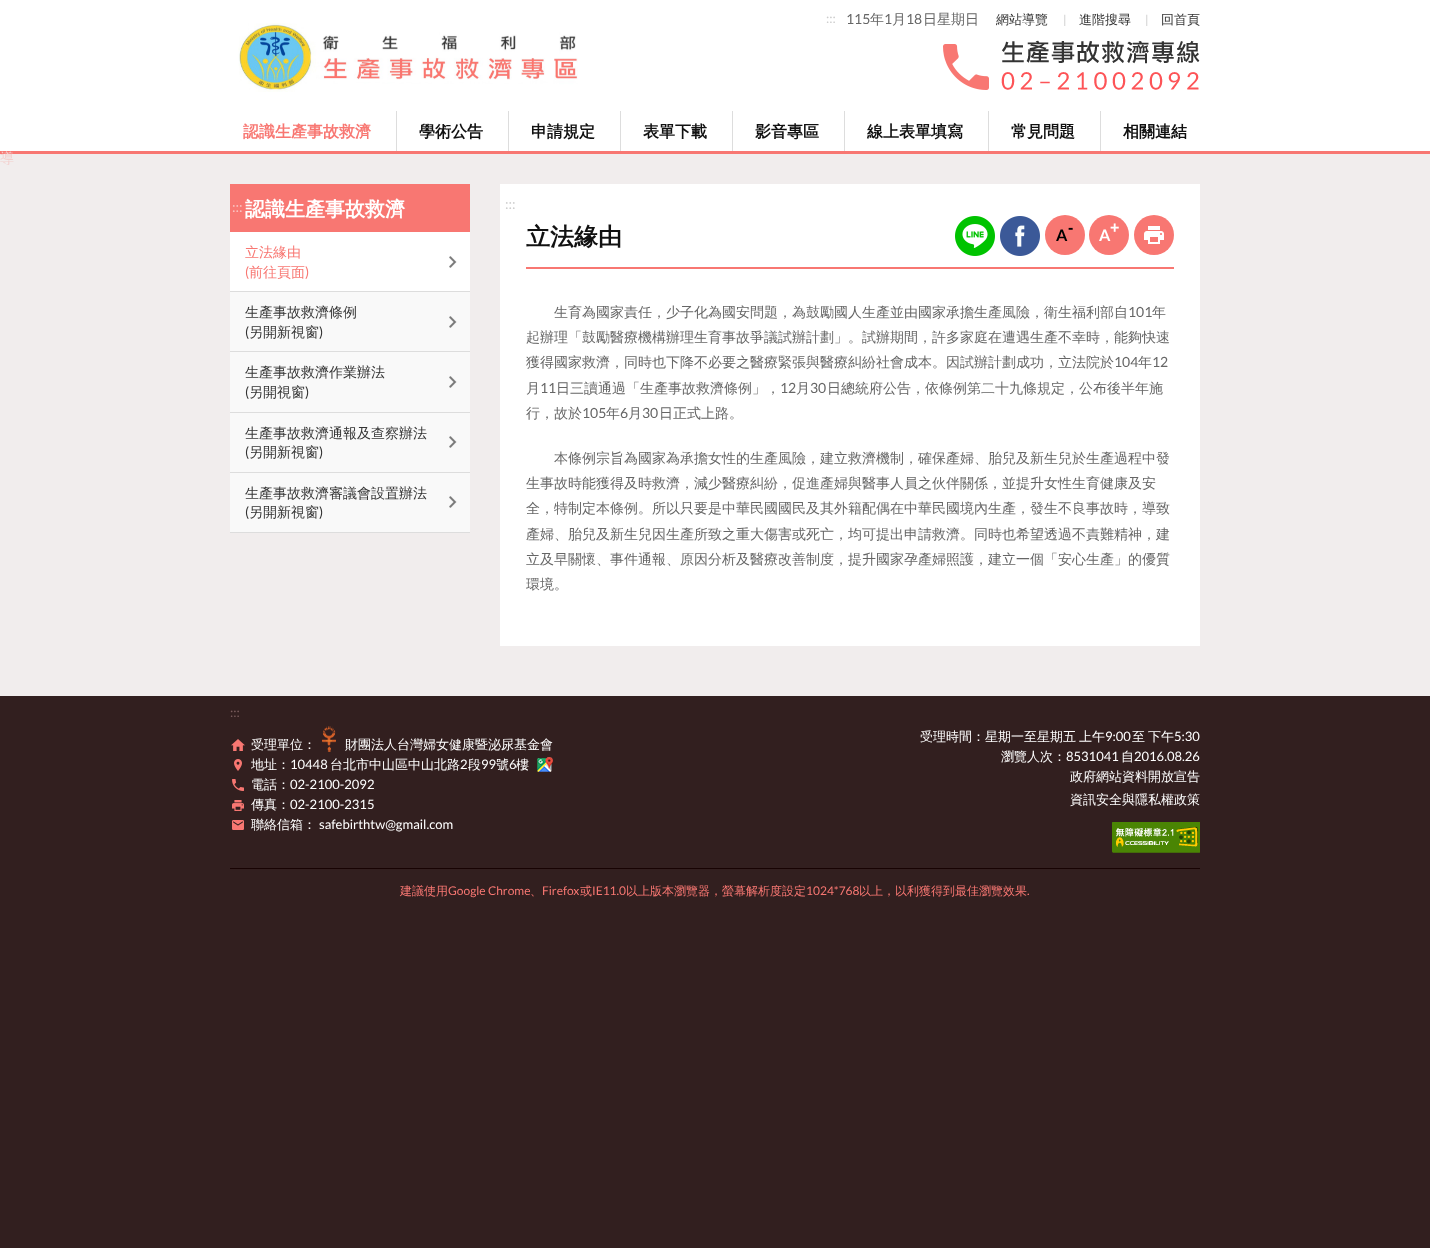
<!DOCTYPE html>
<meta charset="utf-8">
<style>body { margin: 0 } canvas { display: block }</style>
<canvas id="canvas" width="1430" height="1248"></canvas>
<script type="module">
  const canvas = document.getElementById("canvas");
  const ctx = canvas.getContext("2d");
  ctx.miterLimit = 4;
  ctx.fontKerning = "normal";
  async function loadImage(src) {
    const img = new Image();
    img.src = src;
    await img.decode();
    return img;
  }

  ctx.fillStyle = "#321f1f";
  ctx.fillRect(0, 0, 1430, 1248);
  ctx.fillStyle = "#ffffff";
  ctx.fillRect(0, 0, 1430, 151);
  ctx.fillStyle = "#f87772";
  ctx.fillRect(0, 151, 1430, 3);
  ctx.font = "13px Lato";
  ctx.fillStyle = "#cccccc";
  ctx.fillText(":::", 826, 23);
  ctx.font = "14px Lato";
  ctx.fillStyle = "#666666";
  ctx.fillText("115", 846, 24);
  ctx.font = "500 14px WenQuanYi Zen Hei";
  ctx.fillText("年", 870, 24);
  ctx.font = "14px Lato";
  ctx.fillText("1", 884, 24);
  ctx.font = "500 14px WenQuanYi Zen Hei";
  ctx.fillText("月", 892, 24);
  ctx.font = "14px Lato";
  ctx.fillText("18", 906, 24);
  ctx.font = "500 14px WenQuanYi Zen Hei";
  ctx.fillText("日星期日", 923, 24);
  ctx.font = "500 13px WenQuanYi Zen Hei";
  ctx.fillStyle = "#333333";
  ctx.fillText("網站導覽", 996, 24);
  ctx.font = "12px Lato";
  ctx.fillStyle = "#cccccc";
  ctx.fillText("|", 1063, 24);
  ctx.font = "500 13px WenQuanYi Zen Hei";
  ctx.fillStyle = "#333333";
  ctx.fillText("進階搜尋", 1079, 24);
  ctx.font = "12px Lato";
  ctx.fillStyle = "#cccccc";
  ctx.fillText("|", 1145, 24);
  ctx.font = "500 13px WenQuanYi Zen Hei";
  ctx.fillStyle = "#333333";
  ctx.fillText("回首頁", 1161, 24);
  ctx.drawImage(await loadImage("img1.png"), 238, 23, 340, 69);
  ctx.drawImage(await loadImage("img2.png"), 943, 40, 257, 50);
  ctx.font = "bold 16px WenQuanYi Zen Hei";
  ctx.fillStyle = "#f87772";
  ctx.fillText("認識生產事故救濟", 243, 137);
  ctx.fillStyle = "#dddddd";
  ctx.fillRect(396, 111, 1, 40);
  ctx.fillStyle = "#111111";
  ctx.fillText("學術公告", 419, 137);
  ctx.fillStyle = "#dddddd";
  ctx.fillRect(508, 111, 1, 40);
  ctx.fillStyle = "#111111";
  ctx.fillText("申請規定", 531, 137);
  ctx.fillStyle = "#dddddd";
  ctx.fillRect(620, 111, 1, 40);
  ctx.fillStyle = "#111111";
  ctx.fillText("表單下載", 643, 137);
  ctx.fillStyle = "#dddddd";
  ctx.fillRect(732, 111, 1, 40);
  ctx.fillStyle = "#111111";
  ctx.fillText("影音專區", 755, 137);
  ctx.fillStyle = "#dddddd";
  ctx.fillRect(844, 111, 1, 40);
  ctx.fillStyle = "#111111";
  ctx.fillText("線上表單填寫", 867, 137);
  ctx.fillStyle = "#dddddd";
  ctx.fillRect(988, 111, 1, 40);
  ctx.fillStyle = "#111111";
  ctx.fillText("常見問題", 1011, 137);
  ctx.fillStyle = "#dddddd";
  ctx.fillRect(1100, 111, 1, 40);
  ctx.fillStyle = "#111111";
  ctx.fillText("相關連結", 1123, 137);
  ctx.fillStyle = "#f1eded";
  ctx.fillRect(0, 154, 1430, 542);
  ctx.font = "500 14px WenQuanYi Zen Hei";
  ctx.fillStyle = "#f3d0ce";
  ctx.fillText("導", 0, 163);
  ctx.fillStyle = "#f87772";
  ctx.fillRect(230, 184, 240, 48);
  ctx.font = "14px Lato";
  ctx.fillStyle = "#fac6c4";
  ctx.fillText(":::", 232, 212);
  ctx.font = "bold 20px WenQuanYi Zen Hei";
  ctx.fillStyle = "#ffffff";
  ctx.fillText("認識生產事故救濟", 245, 216);
  ctx.fillStyle = "#f9f9f9";
  ctx.fillRect(230, 292, 240, 240);
  ctx.fillStyle = "#ffffff";
  ctx.fillRect(230, 232, 240, 59);
  ctx.drawImage(await loadImage("img3.png"), 449, 256, 8, 12);
  ctx.fillStyle = "#dddddd";
  ctx.fillRect(230, 291, 240, 1);
  ctx.font = "500 14px WenQuanYi Zen Hei";
  ctx.fillStyle = "#f87772";
  ctx.fillText("立法緣由", 245, 257);
  ctx.font = "14px Lato";
  ctx.fillText("(", 245, 277);
  ctx.font = "500 14px WenQuanYi Zen Hei";
  ctx.fillText("前往頁面", 249, 277);
  ctx.font = "14px Lato";
  ctx.fillText(")", 305, 277);
  ctx.drawImage(await loadImage("img4.png"), 449, 316, 8, 12);
  ctx.fillStyle = "#dddddd";
  ctx.fillRect(230, 351, 240, 1);
  ctx.font = "500 14px WenQuanYi Zen Hei";
  ctx.fillStyle = "#333333";
  ctx.fillText("生產事故救濟條例", 245, 317);
  ctx.font = "14px Lato";
  ctx.fillText("(", 245, 337);
  ctx.font = "500 14px WenQuanYi Zen Hei";
  ctx.fillText("另開新視窗", 249, 337);
  ctx.font = "14px Lato";
  ctx.fillText(")", 319, 337);
  ctx.drawImage(await loadImage("img4.png"), 449, 376, 8, 12);
  ctx.fillStyle = "#dddddd";
  ctx.fillRect(230, 412, 240, 1);
  ctx.font = "500 14px WenQuanYi Zen Hei";
  ctx.fillStyle = "#333333";
  ctx.fillText("生產事故救濟作業辦法", 245, 377);
  ctx.font = "14px Lato";
  ctx.fillText("(", 245, 397);
  ctx.font = "500 14px WenQuanYi Zen Hei";
  ctx.fillText("另開視窗", 249, 397);
  ctx.font = "14px Lato";
  ctx.fillText(")", 305, 397);
  ctx.drawImage(await loadImage("img4.png"), 449, 436, 8, 12);
  ctx.fillStyle = "#dddddd";
  ctx.fillRect(230, 472, 240, 1);
  ctx.font = "500 14px WenQuanYi Zen Hei";
  ctx.fillStyle = "#333333";
  ctx.fillText("生產事故救濟通報及查察辦法", 245, 438);
  ctx.font = "14px Lato";
  ctx.fillText("(", 245, 457);
  ctx.font = "500 14px WenQuanYi Zen Hei";
  ctx.fillText("另開新視窗", 249, 457);
  ctx.font = "14px Lato";
  ctx.fillText(")", 319, 457);
  ctx.drawImage(await loadImage("img4.png"), 449, 496, 8, 12);
  ctx.fillStyle = "#dddddd";
  ctx.fillRect(230, 532, 240, 1);
  ctx.font = "500 14px WenQuanYi Zen Hei";
  ctx.fillStyle = "#333333";
  ctx.fillText("生產事故救濟審議會設置辦法", 245, 498);
  ctx.font = "14px Lato";
  ctx.fillText("(", 245, 517);
  ctx.font = "500 14px WenQuanYi Zen Hei";
  ctx.fillText("另開新視窗", 249, 517);
  ctx.font = "14px Lato";
  ctx.fillText(")", 319, 517);
  ctx.fillStyle = "#ffffff";
  ctx.fillRect(500, 184, 700, 462);
  ctx.fillStyle = "#cccccc";
  ctx.fillText(":::", 505, 209);
  ctx.fillStyle = "#f87772";
  ctx.fillRect(526, 267, 648, 2);
  ctx.font = "bold 24px WenQuanYi Zen Hei";
  ctx.fillStyle = "#111111";
  ctx.fillText("立法緣由", 526, 245);
  ctx.drawImage(await loadImage("img5.png"), 955, 216, 40, 40);
  ctx.drawImage(await loadImage("img6.png"), 1000, 216, 40, 40);
  ctx.fillStyle = "#f87772";
  ctx.beginPath();
  ctx.arc(1065, 235, 20, 0, Math.PI * 2);
  ctx.fill();
  ctx.font = "bold 16px Liberation Sans";
  ctx.fillStyle = "#000000";
  ctx.fillText("-", 1068, 233);
  ctx.font = "bold 16px Lato";
  ctx.fillText("A", 1056, 241);
  ctx.fillStyle = "#f87772";
  ctx.beginPath();
  ctx.arc(1109, 235, 20, 0, Math.PI * 2);
  ctx.fill();
  ctx.font = "bold 16px Liberation Sans";
  ctx.fillStyle = "#ffffff";
  ctx.fillText("+", 1110, 233);
  ctx.font = "bold 16px Lato";
  ctx.fillText("A", 1099, 241);
  ctx.fillStyle = "#f87772";
  ctx.beginPath();
  ctx.arc(1154, 235, 20, 0, Math.PI * 2);
  ctx.fill();
  ctx.drawImage(await loadImage("img7.png"), 1144, 226, 20, 18);
  ctx.font = "500 14px WenQuanYi Zen Hei";
  ctx.fillStyle = "#666666";
  ctx.fillText("生育為國家責任，少子化為國安問題，為鼓勵國人生產並由國家承擔生產風險，衛生福利部自", 554, 317);
  ctx.font = "14px Lato";
  ctx.fillText("101", 1128, 317);
  ctx.font = "500 14px WenQuanYi Zen Hei";
  ctx.fillText("年", 1152, 317);
  ctx.fillText("起辦理「鼓勵醫療機構辦理生育事故爭議試辦計劃」。試辦期間，許多家庭在遭遇生產不幸時，能夠快速", 526, 342);
  ctx.fillText("獲得國家救濟，同時也下降不必要之醫療緊張與醫療糾紛社會成本。因試辦計劃成功，立法院於", 526, 367);
  ctx.font = "14px Lato";
  ctx.fillText("104", 1114, 367);
  ctx.font = "500 14px WenQuanYi Zen Hei";
  ctx.fillText("年", 1138, 367);
  ctx.font = "14px Lato";
  ctx.fillText("12", 1152, 367);
  ctx.font = "500 14px WenQuanYi Zen Hei";
  ctx.fillText("月", 526, 393);
  ctx.font = "14px Lato";
  ctx.fillText("11", 540, 393);
  ctx.font = "500 14px WenQuanYi Zen Hei";
  ctx.fillText("日三讀通過「生產事故救濟條例」，", 556, 393);
  ctx.font = "14px Lato";
  ctx.fillText("12", 780, 393);
  ctx.font = "500 14px WenQuanYi Zen Hei";
  ctx.fillText("月", 796, 393);
  ctx.font = "14px Lato";
  ctx.fillText("30", 810, 393);
  ctx.font = "500 14px WenQuanYi Zen Hei";
  ctx.fillText("日總統府公告，依條例第二十九條規定，公布後半年施", 827, 393);
  ctx.fillText("行，故於", 526, 418);
  ctx.font = "14px Lato";
  ctx.fillText("105", 582, 418);
  ctx.font = "500 14px WenQuanYi Zen Hei";
  ctx.fillText("年", 606, 418);
  ctx.font = "14px Lato";
  ctx.fillText("6", 620, 418);
  ctx.font = "500 14px WenQuanYi Zen Hei";
  ctx.fillText("月", 628, 418);
  ctx.font = "14px Lato";
  ctx.fillText("30", 642, 418);
  ctx.font = "500 14px WenQuanYi Zen Hei";
  ctx.fillText("日正式上路。", 659, 418);
  ctx.fillText("本條例宗旨為國家為承擔女性的生產風險，建立救濟機制，確保產婦、胎兒及新生兒於生產過程中發", 554, 463);
  ctx.fillText("生事故時能獲得及時救濟，減少醫療糾紛，促進產婦與醫事人員之伙伴關係，並提升女性生育健康及安", 526, 488);
  ctx.fillText("全，特制定本條例。所以只要是中華民國國民及其外籍配偶在中華民國境內生產，發生不良事故時，導致", 526, 513);
  ctx.fillText("產婦、胎兒及新生兒因生產所致之重大傷害或死亡，均可提出申請救濟。同時也希望透過不責難精神，建", 526, 539);
  ctx.fillText("立及早關懷、事件通報、原因分析及醫療改善制度，提升國家孕產婦照護，建立一個「安心生產」的優質", 526, 564);
  ctx.fillText("環境。", 526, 589);
  ctx.font = "13px Lato";
  ctx.fillStyle = "#7a5d5d";
  ctx.fillText(":::", 230, 717);
  ctx.drawImage(await loadImage("img8.png"), 231, 739, 14, 12);
  ctx.font = "500 13px WenQuanYi Zen Hei";
  ctx.fillStyle = "#ffffff";
  ctx.fillText("受理單位：", 251, 749);
  ctx.drawImage(await loadImage("img9.png"), 322, 726, 14, 26);
  ctx.fillText("財團法人台灣婦女健康暨泌尿基金會", 345, 749);
  ctx.drawImage(await loadImage("img10.png"), 234, 759, 8, 12);
  ctx.fillText("地址：", 251, 769);
  ctx.font = "13px Lato";
  ctx.fillText("10448", 290, 769);
  ctx.font = "500 13px WenQuanYi Zen Hei";
  ctx.fillText("台北市中山區中山北路", 330, 769);
  ctx.font = "13px Lato";
  ctx.fillText("2", 460, 769);
  ctx.font = "500 13px WenQuanYi Zen Hei";
  ctx.fillText("段", 468, 769);
  ctx.font = "13px Lato";
  ctx.fillText("99", 481, 769);
  ctx.font = "500 13px WenQuanYi Zen Hei";
  ctx.fillText("號", 496, 769);
  ctx.font = "13px Lato";
  ctx.fillText("6", 509, 769);
  ctx.font = "500 13px WenQuanYi Zen Hei";
  ctx.fillText("樓", 516, 769);
  ctx.drawImage(await loadImage("img11.png"), 537, 757, 16, 15);
  ctx.drawImage(await loadImage("img12.png"), 232, 779, 12, 12);
  ctx.fillText("電話：", 251, 789);
  ctx.font = "13px Lato";
  ctx.fillText("02-2100-2092", 290, 789);
  ctx.drawImage(await loadImage("img13.png"), 232, 800, 12, 11);
  ctx.font = "500 13px WenQuanYi Zen Hei";
  ctx.fillText("傳真：", 251, 809);
  ctx.font = "13px Lato";
  ctx.fillText("02-2100-2315", 290, 809);
  ctx.drawImage(await loadImage("img14.png"), 232, 820, 12, 10);
  ctx.font = "500 13px WenQuanYi Zen Hei";
  ctx.fillText("聯絡信箱：", 251, 829);
  ctx.font = "13px Lato";
  ctx.fillText("safebirthtw@gmail.com", 319, 829);
  ctx.wordSpacing = "-1px";
  ctx.font = "500 13px WenQuanYi Zen Hei";
  ctx.fillText("受理時間：星期一至星期五 上午", 920, 741);
  ctx.wordSpacing = "0px";
  ctx.font = "13px Lato";
  ctx.fillText("9:00", 1105, 741);
  ctx.wordSpacing = "-1px";
  ctx.font = "500 13px WenQuanYi Zen Hei";
  ctx.fillText("至 下午", 1132, 741);
  ctx.wordSpacing = "0px";
  ctx.font = "13px Lato";
  ctx.fillText("5:30", 1174, 741);
  ctx.font = "500 13px WenQuanYi Zen Hei";
  ctx.fillText("瀏覽人次：", 1001, 761);
  ctx.font = "13px Lato";
  ctx.fillText("8531041", 1066, 761);
  ctx.font = "500 13px WenQuanYi Zen Hei";
  ctx.fillText("自", 1121, 761);
  ctx.font = "13px Lato";
  ctx.fillText("2016.08.26", 1134, 761);
  ctx.font = "500 13px WenQuanYi Zen Hei";
  ctx.fillText("政府網站資料開放宣告", 1070, 781);
  ctx.fillText("資訊安全與隱私權政策", 1070, 804);
  ctx.drawImage(await loadImage("img15.png"), 1112, 822, 88, 31);
  ctx.fillStyle = "#180303";
  ctx.fillRect(230, 868, 970, 1);
  ctx.font = "500 12px WenQuanYi Zen Hei";
  ctx.fillStyle = "#f87772";
  ctx.fillText("建議使用", 400, 895);
  ctx.font = "12px Lato";
  ctx.fillText("Google Chrome", 448, 895);
  ctx.font = "500 12px WenQuanYi Zen Hei";
  ctx.fillText("、", 530, 895);
  ctx.font = "12px Lato";
  ctx.fillText("Firefox", 542, 895);
  ctx.font = "500 12px WenQuanYi Zen Hei";
  ctx.fillText("或", 580, 895);
  ctx.font = "12px Lato";
  ctx.fillText("IE11.0", 592, 895);
  ctx.font = "500 12px WenQuanYi Zen Hei";
  ctx.fillText("以上版本瀏覽器，螢幕解析度設定", 626, 895);
  ctx.font = "12px Lato";
  ctx.fillText("1024*768", 806, 895);
  ctx.font = "500 12px WenQuanYi Zen Hei";
  ctx.fillText("以上，以利獲得到最佳瀏覽效果", 859, 895);
  ctx.font = "12px Lato";
  ctx.fillText(".", 1027, 895);
</script>
